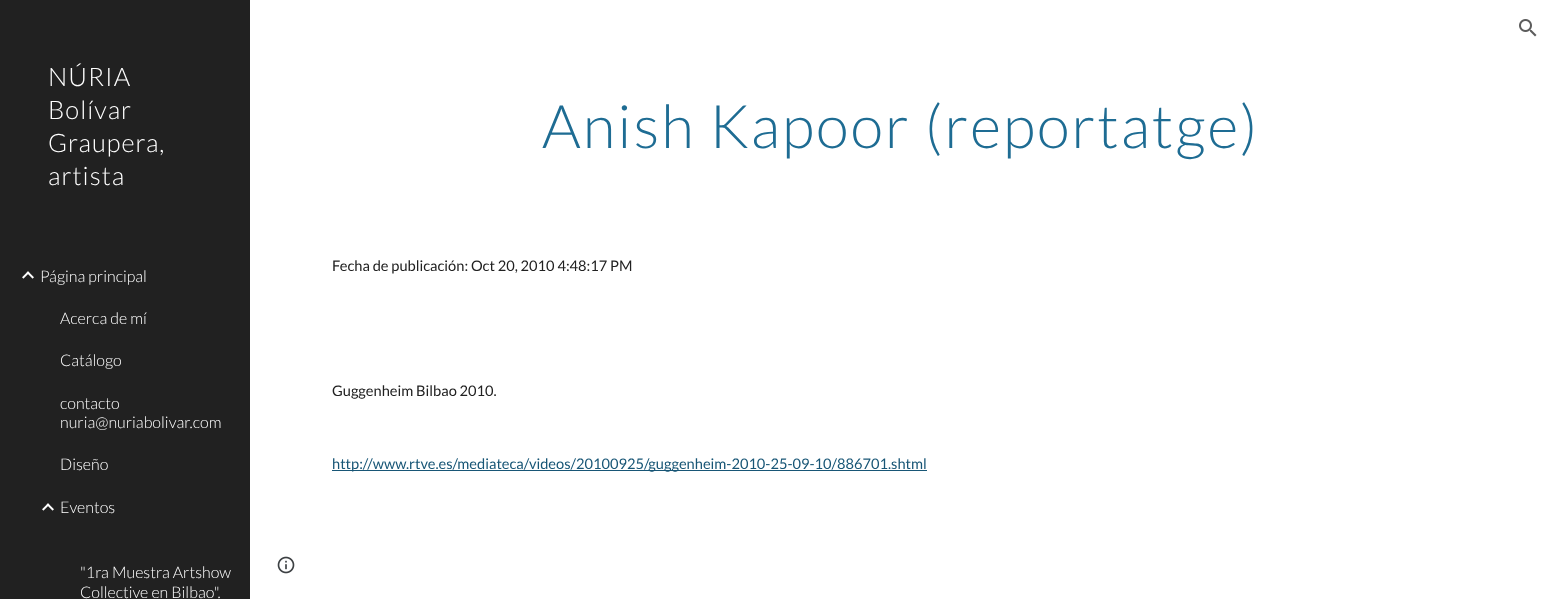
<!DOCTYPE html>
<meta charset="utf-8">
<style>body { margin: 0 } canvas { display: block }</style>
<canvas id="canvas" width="1552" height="599"></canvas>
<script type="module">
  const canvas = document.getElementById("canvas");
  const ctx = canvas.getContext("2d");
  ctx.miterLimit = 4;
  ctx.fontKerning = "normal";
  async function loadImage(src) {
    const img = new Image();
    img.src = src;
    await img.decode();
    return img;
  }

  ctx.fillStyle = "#ffffff";
  ctx.fillRect(0, 0, 1552, 599);
  ctx.drawImage(await loadImage("img1.png"), 1519, 19, 18, 18);
  ctx.fillStyle = "#212121";
  ctx.fillRect(0, 0, 250, 599);
  ctx.letterSpacing = "1px";
  ctx.font = "300 25.5px Lato";
  ctx.fillStyle = "#ffffff";
  ctx.fillText("NÚRIA", 48, 86);
  ctx.fillText("Bolívar", 48, 119);
  ctx.fillText("Graupera,", 48, 152);
  ctx.fillText("artista", 48, 185);
  ctx.drawImage(await loadImage("img2.png"), 22, 271, 12, 8);
  ctx.letterSpacing = "0px";
  ctx.font = "300 16px Lato";
  ctx.fillText("Página principal", 40, 282);
  ctx.fillText("Acerca de mí", 60, 324);
  ctx.fillText("Catálogo", 60, 366);
  ctx.fillText("contacto", 60, 409);
  ctx.fillText("nuria@nuriabolivar.com", 60, 428);
  ctx.fillText("Diseño", 60, 470);
  ctx.drawImage(await loadImage("img2.png"), 42, 503, 12, 8);
  ctx.fillText("Eventos", 60, 513);
  ctx.fillText("\"1ra Muestra Artshow", 80, 578);
  ctx.fillText("Collective en Bilbao\".", 80, 598);
  ctx.letterSpacing = "2px";
  ctx.font = "300 60px Lato";
  ctx.fillStyle = "#1e6c93";
  ctx.fillText("Anish Kapoor (reportatge)", 542, 148);
  ctx.letterSpacing = "0px";
  ctx.font = "14.65px Lato";
  ctx.fillStyle = "#212121";
  ctx.fillText("Fecha de publicación: Oct 20, 2010 4:48:17 PM", 332, 271);
  ctx.fillText("Guggenheim Bilbao 2010.", 332, 396);
  ctx.fillStyle = "#185676";
  ctx.fillRect(332, 470, 595, 1);
  ctx.fillText("http://www.rtve.es/mediateca/videos/20100925/guggenheim-2010-25-09-10/886701.shtml", 332, 469);
  ctx.drawImage(await loadImage("img3.png"), 277, 556, 18, 18);
</script>
